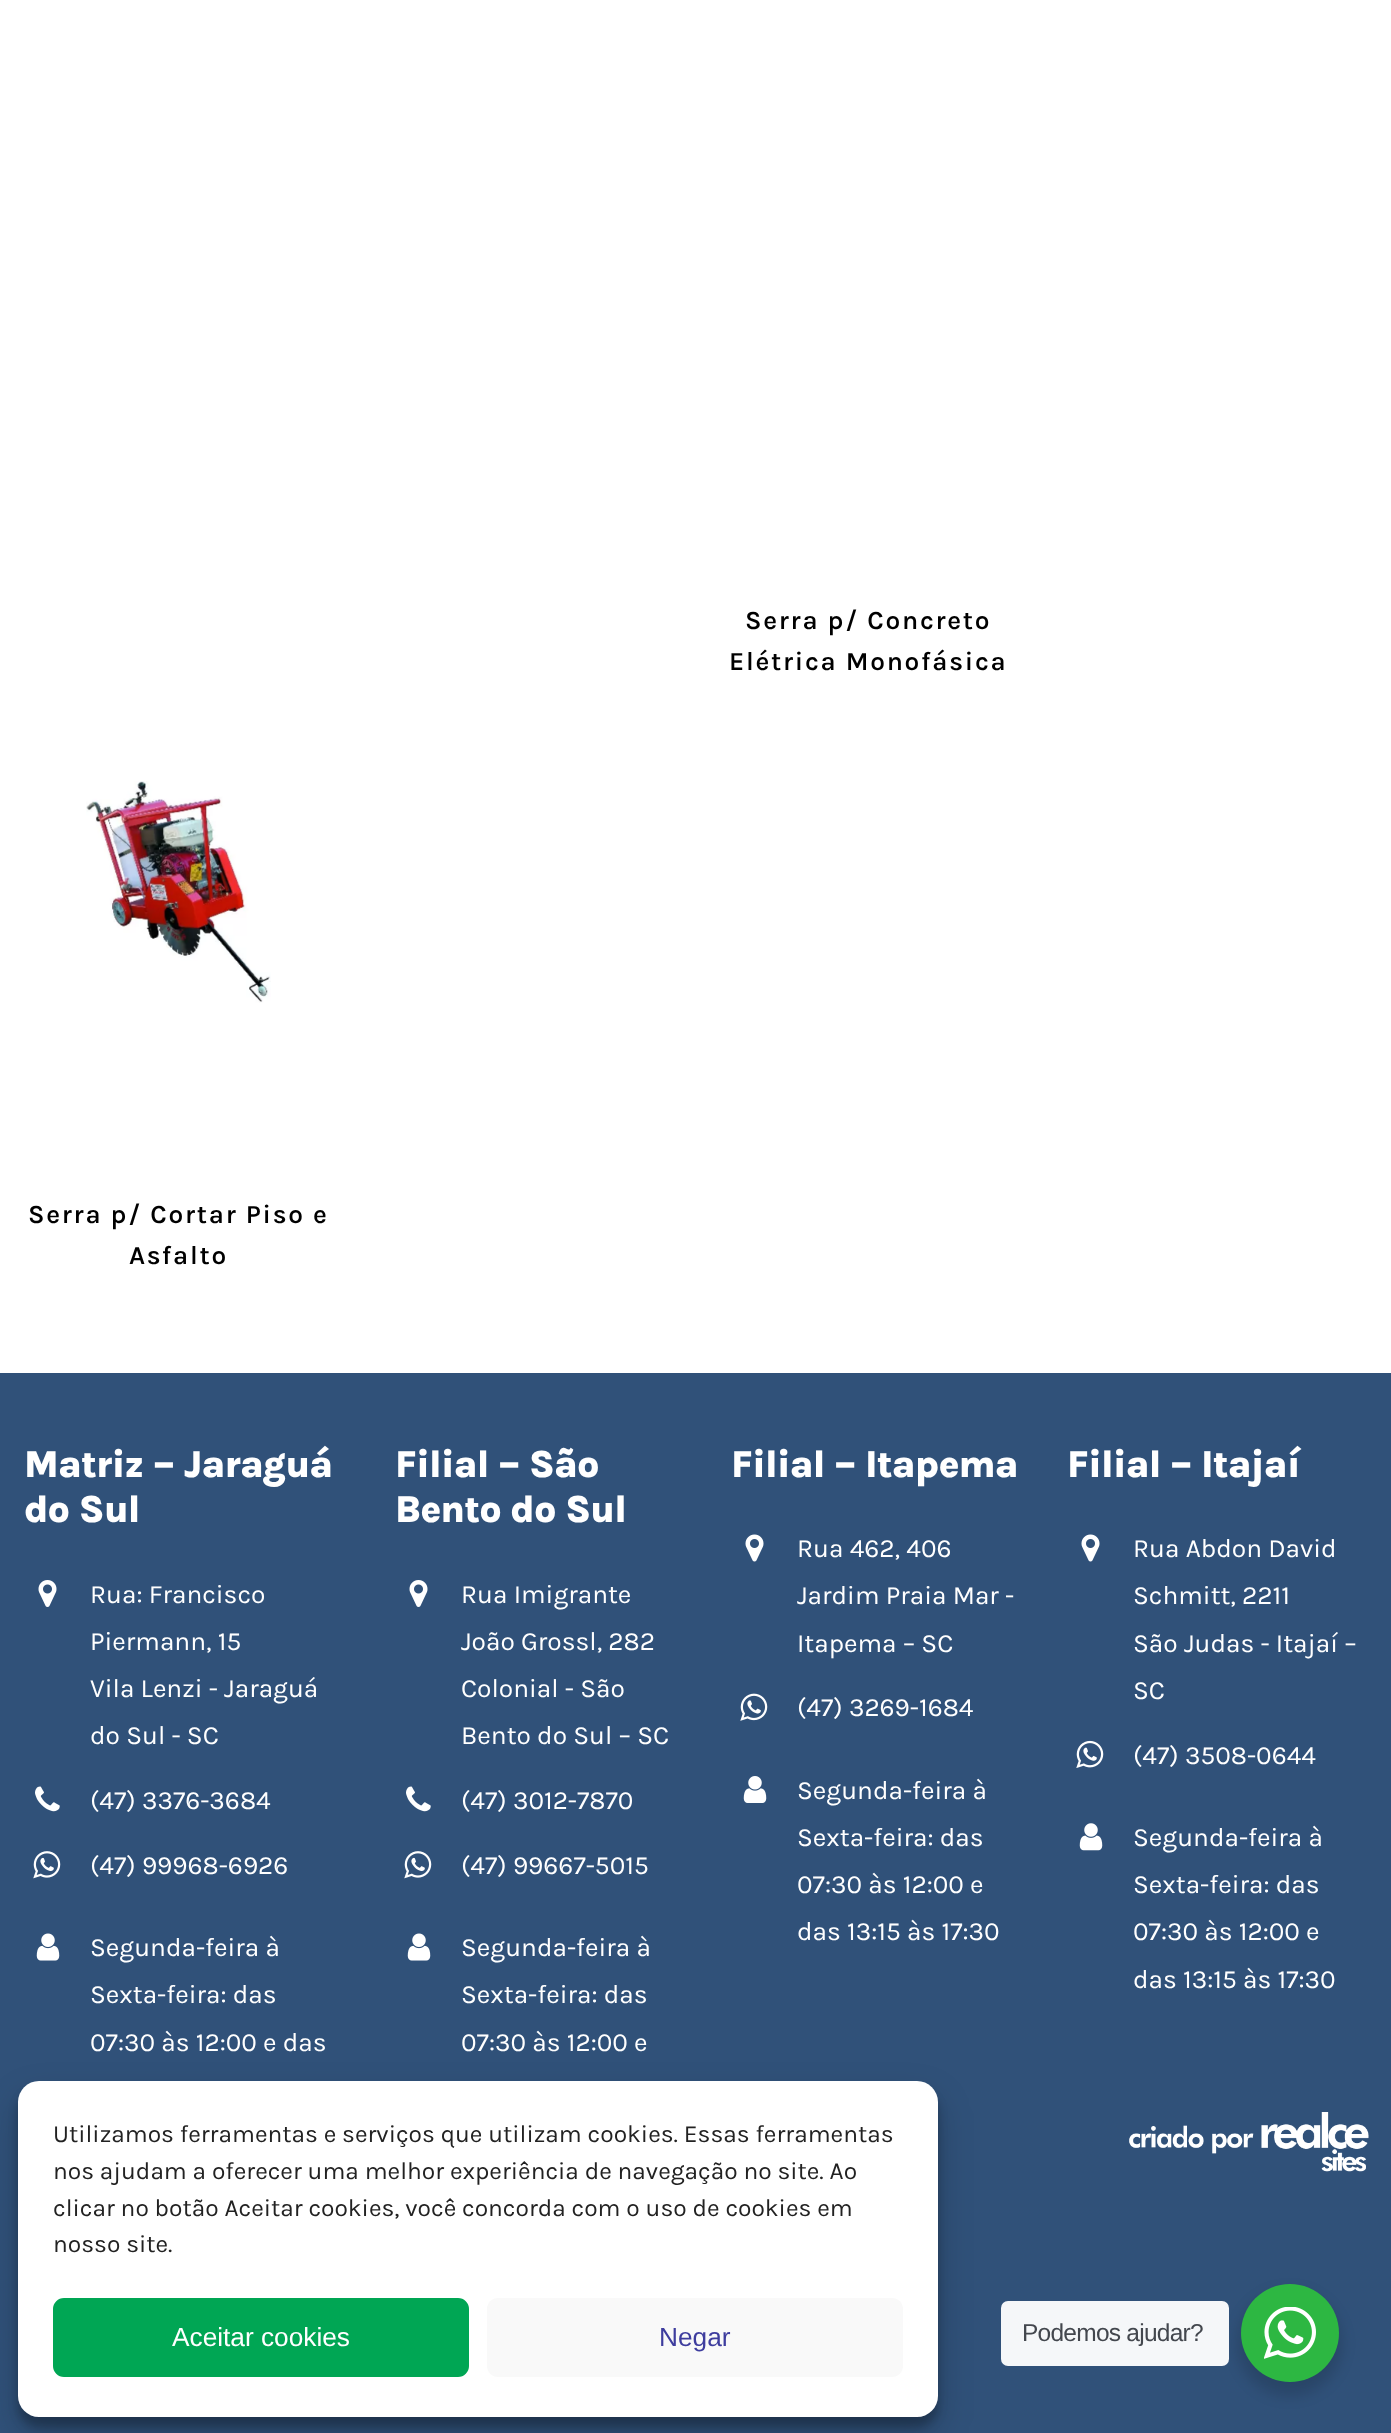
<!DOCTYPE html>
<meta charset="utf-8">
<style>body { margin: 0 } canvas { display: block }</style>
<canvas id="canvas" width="1391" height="2433"></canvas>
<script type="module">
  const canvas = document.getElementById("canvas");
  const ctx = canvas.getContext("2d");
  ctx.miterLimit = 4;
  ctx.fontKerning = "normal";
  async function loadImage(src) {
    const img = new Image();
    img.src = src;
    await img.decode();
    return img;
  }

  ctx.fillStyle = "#ffffff";
  ctx.fillRect(0, 0, 1391, 2433);
  ctx.letterSpacing = "1.75px";
  ctx.font = "600 26.25px Karla";
  ctx.fillStyle = "#000000";
  ctx.fillText("Serra p/ Concreto", 745, 629);
  ctx.fillText("Elétrica Monofásica", 729, 670);
  ctx.drawImage(await loadImage("img1.png"), 86, 781, 185, 222);
  ctx.fillText("Serra p/ Cortar Piso e", 28, 1223);
  ctx.fillText("Asfalto", 129, 1264);
  ctx.fillStyle = "#305179";
  ctx.fillRect(0, 1373, 1391, 1060);
  ctx.letterSpacing = "-0.9px";
  ctx.font = "800 38.5px Karla";
  ctx.fillStyle = "#ffffff";
  ctx.fillText("Matriz – Jaraguá", 24, 1477);
  ctx.fillText("do Sul", 24, 1522);
  ctx.drawImage(await loadImage("img2.png"), 38, 1580, 19, 27);
  ctx.letterSpacing = "0px";
  ctx.font = "26.25px Karla";
  ctx.fillText("Rua: Francisco", 90, 1603);
  ctx.fillText("Piermann, 15", 90, 1650);
  ctx.fillText("Vila Lenzi - Jaraguá", 90, 1697);
  ctx.fillText("do Sul - SC", 90, 1744);
  ctx.drawImage(await loadImage("img3.png"), 35, 1786, 25, 26);
  ctx.fillText("(47) 3376-3684", 90, 1809);
  ctx.drawImage(await loadImage("img4.png"), 33, 1851, 28, 28);
  ctx.fillText("(47) 99968-6926", 90, 1874);
  ctx.drawImage(await loadImage("img5.png"), 36, 1933, 24, 28);
  ctx.fillText("Segunda-feira à", 90, 1956);
  ctx.fillText("Sexta-feira: das", 90, 2003);
  ctx.fillText("07:30 às 12:00 e das", 90, 2051);
  ctx.letterSpacing = "-0.9px";
  ctx.font = "800 38.5px Karla";
  ctx.fillText("Filial – São", 395, 1477);
  ctx.fillText("Bento do Sul", 395, 1522);
  ctx.drawImage(await loadImage("img2.png"), 409, 1580, 19, 27);
  ctx.letterSpacing = "0px";
  ctx.font = "26.25px Karla";
  ctx.fillText("Rua Imigrante", 461, 1603);
  ctx.fillText("João Grossl, 282", 461, 1650);
  ctx.fillText("Colonial - São", 461, 1697);
  ctx.fillText("Bento do Sul – SC", 461, 1744);
  ctx.drawImage(await loadImage("img3.png"), 406, 1786, 25, 26);
  ctx.fillText("(47) 3012-7870", 461, 1809);
  ctx.drawImage(await loadImage("img4.png"), 404, 1851, 28, 28);
  ctx.fillText("(47) 99667-5015", 461, 1874);
  ctx.drawImage(await loadImage("img5.png"), 407, 1933, 24, 28);
  ctx.fillText("Segunda-feira à", 461, 1956);
  ctx.fillText("Sexta-feira: das", 461, 2003);
  ctx.fillText("07:30 às 12:00 e", 461, 2051);
  ctx.letterSpacing = "-0.9px";
  ctx.font = "800 38.5px Karla";
  ctx.fillText("Filial – Itapema", 731, 1477);
  ctx.drawImage(await loadImage("img6.png"), 745, 1534, 19, 28);
  ctx.letterSpacing = "0px";
  ctx.font = "26.25px Karla";
  ctx.fillText("Rua 462, 406", 797, 1557);
  ctx.fillText("Jardim Praia Mar -", 797, 1604);
  ctx.fillText("Itapema – SC", 797, 1652);
  ctx.drawImage(await loadImage("img7.png"), 740, 1693, 28, 28);
  ctx.fillText("(47) 3269-1684", 797, 1716);
  ctx.drawImage(await loadImage("img8.png"), 743, 1776, 24, 27);
  ctx.fillText("Segunda-feira à", 797, 1799);
  ctx.fillText("Sexta-feira: das", 797, 1846);
  ctx.fillText("07:30 às 12:00 e", 797, 1893);
  ctx.fillText("das 13:15 às 17:30", 797, 1940);
  ctx.letterSpacing = "-0.9px";
  ctx.font = "800 38.5px Karla";
  ctx.fillText("Filial – Itajaí", 1067, 1477);
  ctx.drawImage(await loadImage("img6.png"), 1081, 1534, 19, 28);
  ctx.letterSpacing = "0px";
  ctx.font = "26.25px Karla";
  ctx.fillText("Rua Abdon David", 1133, 1557);
  ctx.fillText("Schmitt, 2211", 1133, 1604);
  ctx.fillText("São Judas - Itajaí –", 1133, 1652);
  ctx.fillText("SC", 1133, 1699);
  ctx.drawImage(await loadImage("img9.png"), 1076, 1740, 28, 28);
  ctx.fillText("(47) 3508-0644", 1133, 1764);
  ctx.drawImage(await loadImage("img10.png"), 1079, 1823, 24, 28);
  ctx.fillText("Segunda-feira à", 1133, 1846);
  ctx.fillText("Sexta-feira: das", 1133, 1893);
  ctx.fillText("07:30 às 12:00 e", 1133, 1940);
  ctx.fillText("das 13:15 às 17:30", 1133, 1988);
  ctx.drawImage(await loadImage("img11.png"), 1129, 2112, 240, 60);
  ctx.fillStyle = "rgba(0, 0, 0, 0.23)";
  ctx.filter = "blur(5px)";
  ctx.beginPath();
  ctx.roundRect(18, 2091, 920, 336, 21);
  ctx.fill();
  ctx.filter = "none";
  ctx.fillStyle = "rgba(0, 0, 0, 0.19)";
  ctx.filter = "blur(17.5px)";
  ctx.beginPath();
  ctx.roundRect(18, 2098, 920, 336, 21);
  ctx.fill();
  ctx.filter = "none";
  ctx.fillStyle = "#ffffff";
  ctx.beginPath();
  ctx.roundRect(18, 2081, 920, 336, 21);
  ctx.fill();
  ctx.font = "24.5px Karla";
  ctx.fillStyle = "#222222";
  ctx.fillText("Utilizamos ferramentas e serviços que utilizam cookies. Essas ferramentas", 53, 2142);
  ctx.fillText("nos ajudam a oferecer uma melhor experiência de navegação no site. Ao", 53, 2179);
  ctx.fillText("clicar no botão Aceitar cookies, você concorda com o uso de cookies em", 53, 2216);
  ctx.fillText("nosso site.", 53, 2252);
  ctx.fillStyle = "#00a654";
  ctx.beginPath();
  ctx.roundRect(54, 2299, 414, 77, 10);
  ctx.fill();
  ctx.strokeStyle = "#00a654";
  ctx.lineWidth = 2;
  ctx.stroke();
  ctx.font = "26.25px Liberation Sans";
  ctx.fillStyle = "#ffffff";
  ctx.fillText("Aceitar cookies", 172, 2346);
  ctx.fillStyle = "#f9f9f9";
  ctx.beginPath();
  ctx.roundRect(487, 2298, 416, 79, 11);
  ctx.fill();
  ctx.fillStyle = "#3e3d9e";
  ctx.fillText("Negar", 659, 2346);
  ctx.fillStyle = "rgba(0, 0, 0, 0.14)";
  ctx.filter = "blur(7px)";
  ctx.beginPath();
  ctx.roundRect(1237, 2291, 105, 105, 52.5);
  ctx.fill();
  ctx.filter = "none";
  ctx.fillStyle = "#f5f7f9";
  ctx.beginPath();
  ctx.roundRect(1001, 2301, 228, 65, 7);
  ctx.fill();
  ctx.letterSpacing = "-0.75px";
  ctx.font = "24.5px Liberation Sans";
  ctx.fillStyle = "#43474e";
  ctx.fillText("Podemos ajudar?", 1022, 2341);
  ctx.fillStyle = "#2db742";
  ctx.beginPath();
  ctx.arc(1290, 2333, 49, 0, Math.PI * 2);
  ctx.fill();
  ctx.drawImage(await loadImage("img12.png"), 1264, 2307, 52, 52);
</script>
